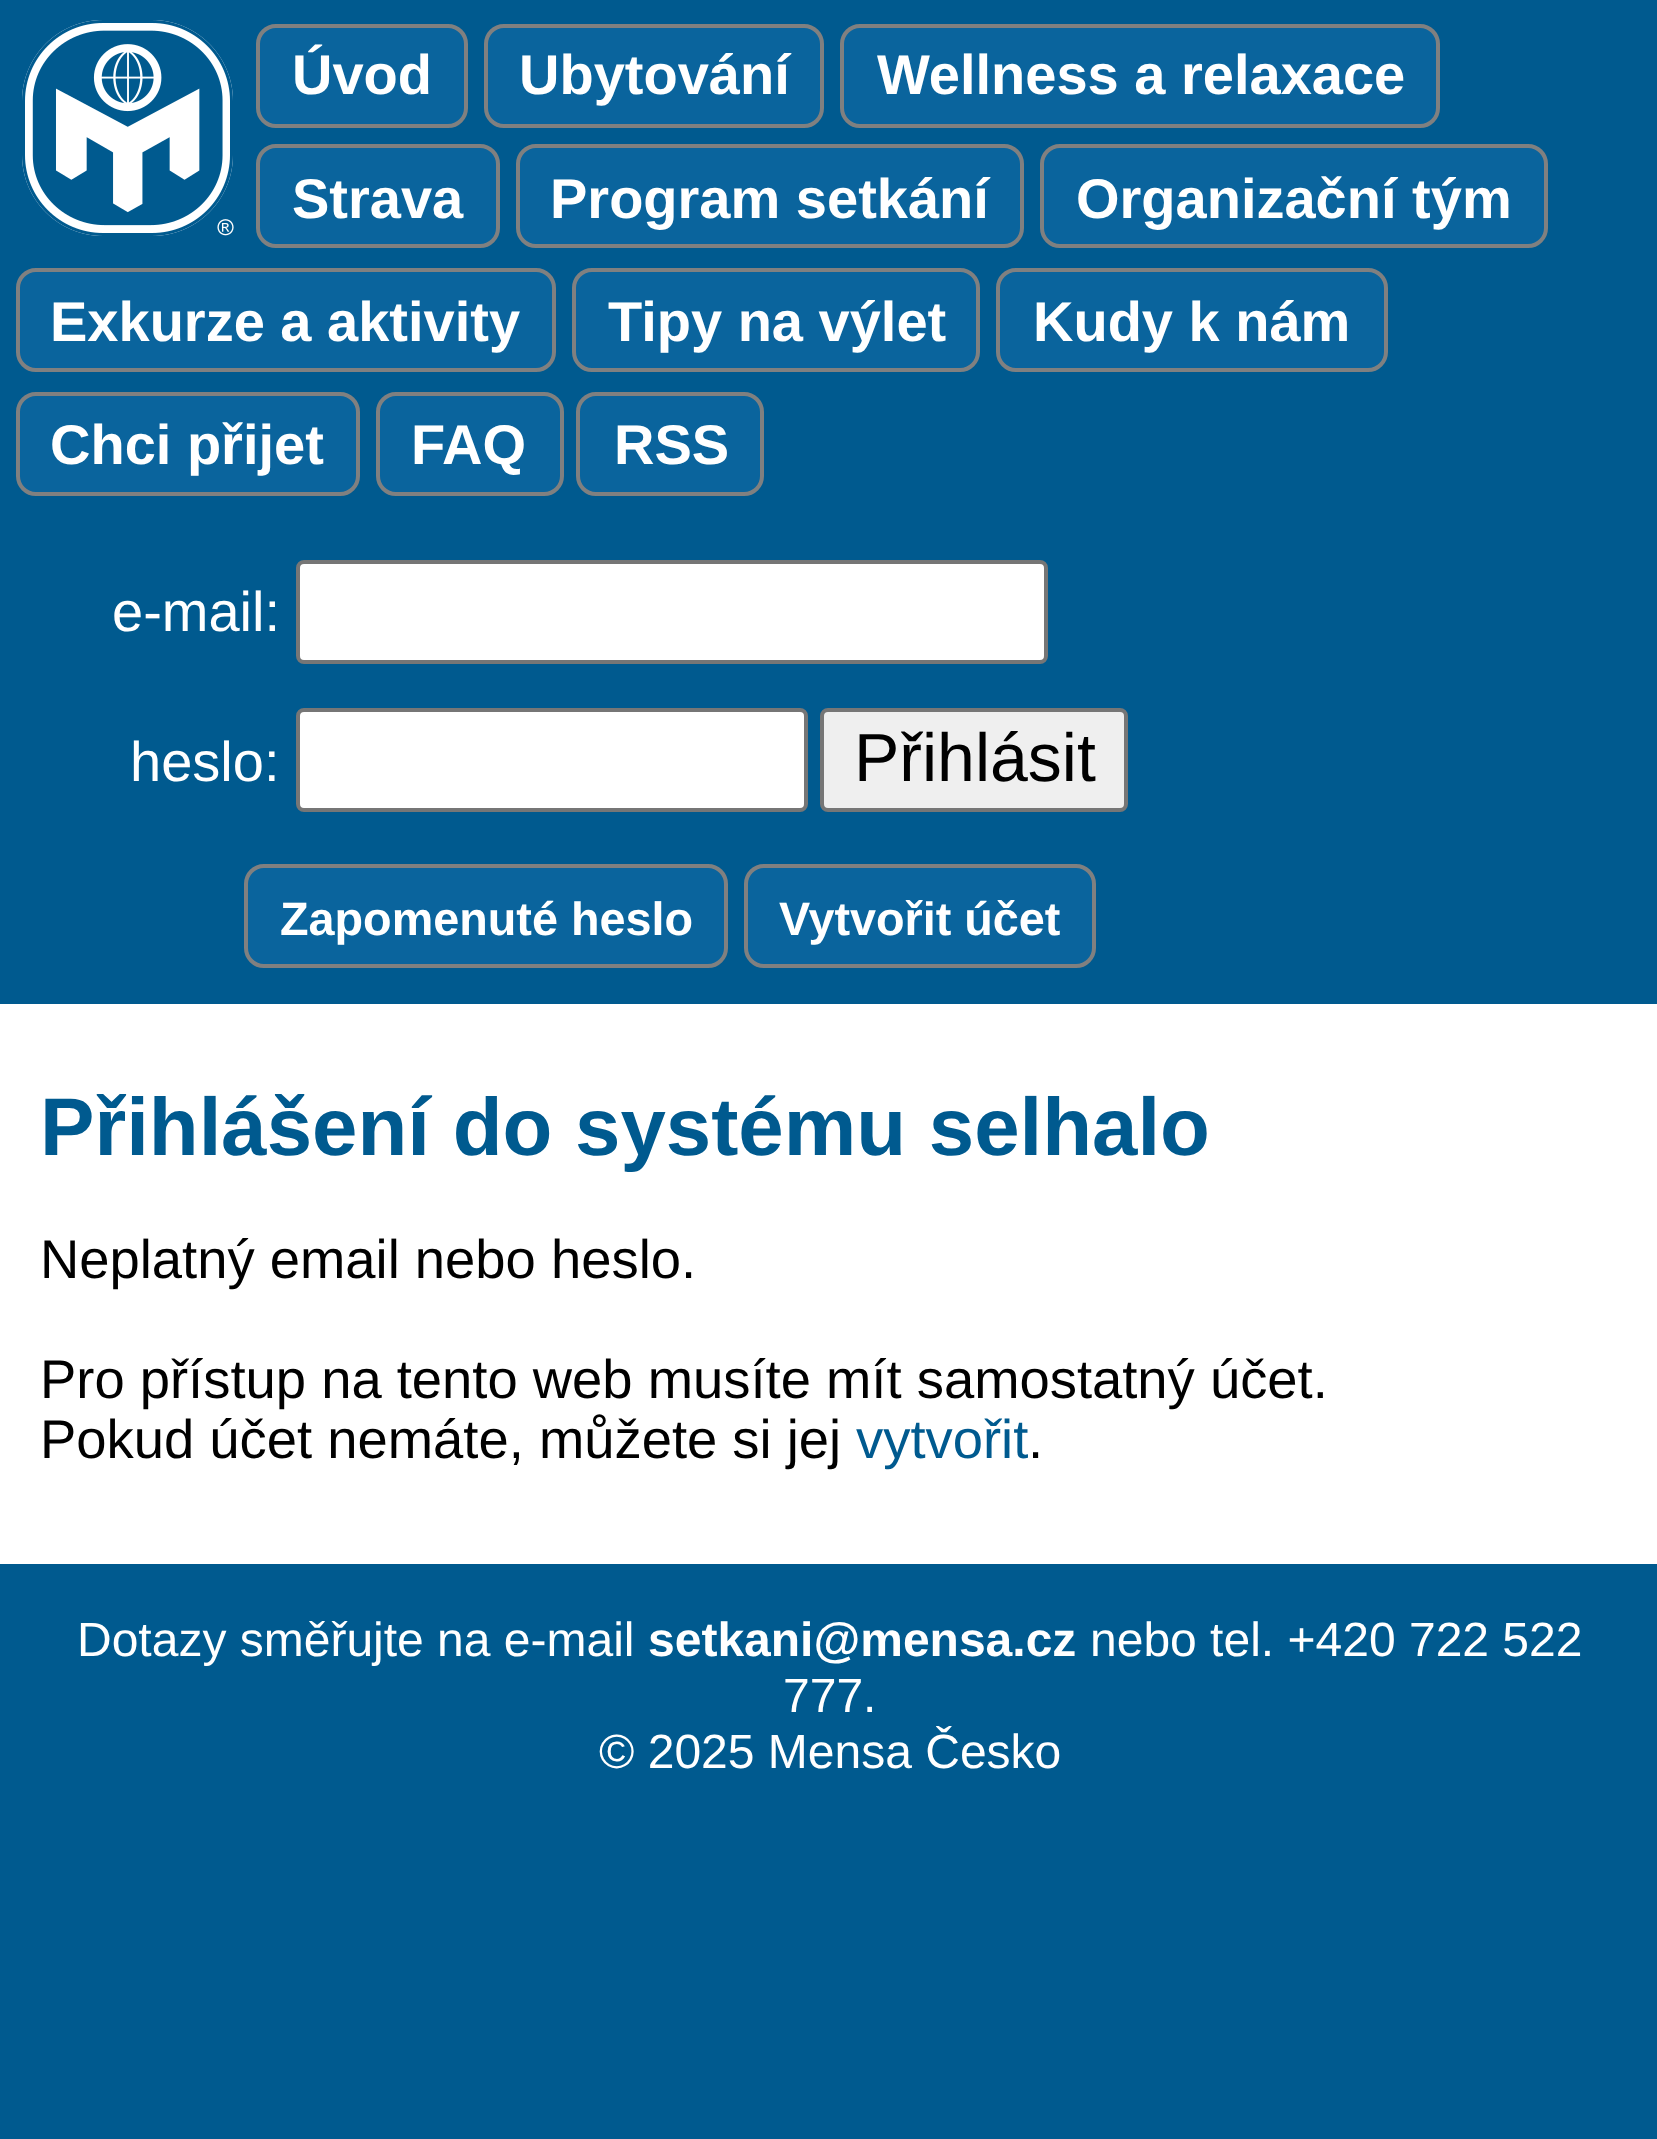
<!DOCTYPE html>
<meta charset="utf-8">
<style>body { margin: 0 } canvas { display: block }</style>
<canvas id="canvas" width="1657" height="2139"></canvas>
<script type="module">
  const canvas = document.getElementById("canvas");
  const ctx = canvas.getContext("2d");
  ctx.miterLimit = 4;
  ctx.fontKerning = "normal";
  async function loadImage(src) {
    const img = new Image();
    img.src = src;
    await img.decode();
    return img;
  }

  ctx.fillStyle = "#005a8f";
  ctx.fillRect(0, 0, 1657, 2139);
  ctx.drawImage(await loadImage("img1.png"), 22, 20, 212, 216);
  ctx.fillStyle = "#0a649d";
  ctx.beginPath();
  ctx.roundRect(258, 26, 208, 100, 18);
  ctx.fill();
  ctx.strokeStyle = "#808080";
  ctx.lineWidth = 4;
  ctx.stroke();
  ctx.font = "bold 56px Liberation Sans";
  ctx.fillStyle = "#ffffff";
  ctx.fillText("Úvod", 292, 94);
  ctx.fillStyle = "#0a649d";
  ctx.beginPath();
  ctx.roundRect(486, 26, 336, 100, 18);
  ctx.fill();
  ctx.stroke();
  ctx.fillStyle = "#ffffff";
  ctx.fillText("Ubytování", 519, 94);
  ctx.fillStyle = "#0a649d";
  ctx.beginPath();
  ctx.roundRect(842, 26, 596, 100, 18);
  ctx.fill();
  ctx.stroke();
  ctx.fillStyle = "#ffffff";
  ctx.fillText("Wellness a relaxace", 877, 94);
  ctx.fillStyle = "#0a649d";
  ctx.beginPath();
  ctx.roundRect(258, 146, 240, 100, 18);
  ctx.fill();
  ctx.stroke();
  ctx.fillStyle = "#ffffff";
  ctx.fillText("Strava", 292, 218);
  ctx.fillStyle = "#0a649d";
  ctx.beginPath();
  ctx.roundRect(518, 146, 504, 100, 18);
  ctx.fill();
  ctx.stroke();
  ctx.fillStyle = "#ffffff";
  ctx.fillText("Program setkání", 550, 218);
  ctx.fillStyle = "#0a649d";
  ctx.beginPath();
  ctx.roundRect(1042, 146, 504, 100, 18);
  ctx.fill();
  ctx.stroke();
  ctx.fillStyle = "#ffffff";
  ctx.fillText("Organizační tým", 1076, 218);
  ctx.fillStyle = "#0a649d";
  ctx.beginPath();
  ctx.roundRect(18, 270, 536, 100, 18);
  ctx.fill();
  ctx.stroke();
  ctx.fillStyle = "#ffffff";
  ctx.fillText("Exkurze a aktivity", 50, 341);
  ctx.fillStyle = "#0a649d";
  ctx.beginPath();
  ctx.roundRect(574, 270, 404, 100, 18);
  ctx.fill();
  ctx.stroke();
  ctx.fillStyle = "#ffffff";
  ctx.fillText("Tipy na výlet", 608, 341);
  ctx.fillStyle = "#0a649d";
  ctx.beginPath();
  ctx.roundRect(998, 270, 388, 100, 18);
  ctx.fill();
  ctx.stroke();
  ctx.fillStyle = "#ffffff";
  ctx.fillText("Kudy k nám", 1033, 341);
  ctx.fillStyle = "#0a649d";
  ctx.beginPath();
  ctx.roundRect(18, 394, 340, 100, 18);
  ctx.fill();
  ctx.stroke();
  ctx.fillStyle = "#ffffff";
  ctx.fillText("Chci přijet", 50, 464);
  ctx.fillStyle = "#0a649d";
  ctx.beginPath();
  ctx.roundRect(378, 394, 184, 100, 18);
  ctx.fill();
  ctx.stroke();
  ctx.fillStyle = "#ffffff";
  ctx.fillText("FAQ", 411, 464);
  ctx.fillStyle = "#0a649d";
  ctx.beginPath();
  ctx.roundRect(578, 394, 184, 100, 18);
  ctx.fill();
  ctx.stroke();
  ctx.fillStyle = "#ffffff";
  ctx.fillText("RSS", 614, 464);
  ctx.font = "56px Liberation Sans";
  ctx.fillText("e-mail:", 112, 631);
  ctx.beginPath();
  ctx.roundRect(298, 562, 748, 100, 6);
  ctx.fill();
  ctx.strokeStyle = "#767676";
  ctx.stroke();
  ctx.fillText("heslo:", 130, 781);
  ctx.beginPath();
  ctx.roundRect(298, 710, 508, 100, 6);
  ctx.fill();
  ctx.stroke();
  ctx.fillStyle = "#efefef";
  ctx.beginPath();
  ctx.roundRect(822, 710, 304, 100, 6);
  ctx.fill();
  ctx.stroke();
  ctx.font = "68px Liberation Sans";
  ctx.fillStyle = "#000000";
  ctx.fillText("Přihlásit", 854, 781);
  ctx.fillStyle = "#0a649d";
  ctx.beginPath();
  ctx.roundRect(246, 866, 480, 100, 18);
  ctx.fill();
  ctx.strokeStyle = "#808080";
  ctx.stroke();
  ctx.font = "bold 46.75px Liberation Sans";
  ctx.fillStyle = "#ffffff";
  ctx.fillText("Zapomenuté heslo", 280, 935);
  ctx.fillStyle = "#0a649d";
  ctx.beginPath();
  ctx.roundRect(746, 866, 348, 100, 18);
  ctx.fill();
  ctx.stroke();
  ctx.fillStyle = "#ffffff";
  ctx.fillText("Vytvořit účet", 779, 935);
  ctx.fillRect(0, 1004, 1657, 560);
  ctx.font = "bold 81.6px Liberation Sans";
  ctx.fillStyle = "#005a8f";
  ctx.fillText("Přihlášení do systému selhalo", 40, 1155);
  ctx.font = "54.4px Liberation Sans";
  ctx.fillStyle = "#000000";
  ctx.fillText("Neplatný email nebo heslo.", 40, 1278);
  ctx.fillText("Pro přístup na tento web musíte mít samostatný účet.", 40, 1398);
  ctx.fillText("Pokud účet nemáte, můžete si jej", 40, 1458);
  ctx.fillStyle = "#005a8f";
  ctx.fillText("vytvořit", 856, 1458);
  ctx.fillStyle = "#000000";
  ctx.fillText(".", 1028, 1458);
  ctx.font = "48px Liberation Sans";
  ctx.fillStyle = "#ffffff";
  ctx.fillText("Dotazy směřujte na e-mail", 77, 1656);
  ctx.font = "bold 48px Liberation Sans";
  ctx.fillText("setkani@mensa.cz", 648, 1656);
  ctx.font = "48px Liberation Sans";
  ctx.fillText("nebo tel. +420 722 522", 1090, 1656);
  ctx.fillText("777.", 783, 1712);
  ctx.fillText("© 2025 Mensa Česko", 599, 1768);
</script>
